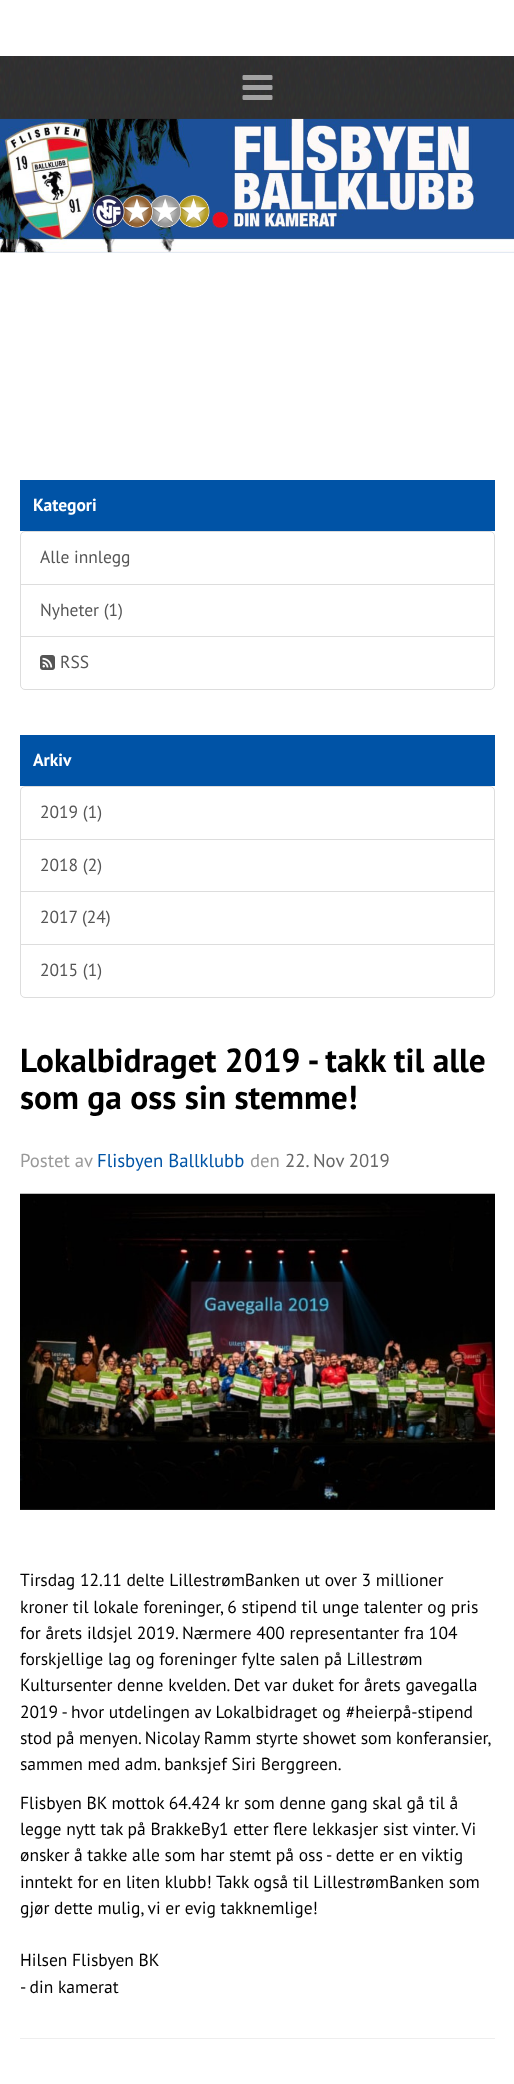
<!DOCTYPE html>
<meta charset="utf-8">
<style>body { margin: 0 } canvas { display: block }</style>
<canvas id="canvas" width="514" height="2084"></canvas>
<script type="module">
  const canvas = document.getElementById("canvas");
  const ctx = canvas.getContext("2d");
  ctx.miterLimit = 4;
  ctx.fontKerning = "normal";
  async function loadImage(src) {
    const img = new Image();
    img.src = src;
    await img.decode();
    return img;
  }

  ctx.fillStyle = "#ffffff";
  ctx.fillRect(0, 0, 514, 2084);
  ctx.fillStyle = "#302f30";
  ctx.fillRect(0, 56, 514, 63);
  ctx.drawImage(await loadImage("img1.png"), 0, 56, 514, 62);
  ctx.drawImage(await loadImage("img2.png"), 242, 75, 31, 25);
  ctx.drawImage(await loadImage("img3.png"), 0, 118, 514, 135);
  ctx.fillStyle = "#0053a6";
  ctx.fillRect(20, 480, 475, 51);
  ctx.font = "bold 17.5px PT Sans";
  ctx.fillStyle = "#ffffff";
  ctx.fillText("Kategori", 33, 511);
  ctx.beginPath();
  ctx.roundRect(20.5, 531.5, 474, 53, [4.5, 4.5, 0, 0]);
  ctx.strokeStyle = "#dddddd";
  ctx.stroke();
  ctx.font = "17.5px PT Sans";
  ctx.fillStyle = "#555555";
  ctx.fillText("Alle innlegg", 40, 563);
  ctx.strokeRect(20.5, 584.5, 474, 53);
  ctx.fillText("Nyheter (1)", 40, 616);
  ctx.fillStyle = "#ffffff";
  ctx.beginPath();
  ctx.roundRect(20.5, 636.5, 474, 53, [0, 0, 4.5, 4.5]);
  ctx.fill();
  ctx.stroke();
  ctx.drawImage(await loadImage("img4.png"), 40, 655, 15, 15);
  ctx.fillStyle = "#555555";
  ctx.fillText("RSS", 60, 668);
  ctx.fillStyle = "#0053a6";
  ctx.fillRect(20, 735, 475, 51);
  ctx.font = "bold 17.5px PT Sans";
  ctx.fillStyle = "#ffffff";
  ctx.fillText("Arkiv", 33, 766);
  ctx.beginPath();
  ctx.roundRect(20.5, 786.5, 474, 53, [4.5, 4.5, 0, 0]);
  ctx.stroke();
  ctx.font = "17.5px PT Sans";
  ctx.fillStyle = "#555555";
  ctx.fillText("2019 (1)", 40, 818);
  ctx.strokeRect(20.5, 839.5, 474, 53);
  ctx.fillText("2018 (2)", 40, 871);
  ctx.fillStyle = "#ffffff";
  ctx.fillRect(21, 892, 473, 1);
  ctx.strokeRect(20.5, 891.5, 474, 53);
  ctx.fillStyle = "#555555";
  ctx.fillText("2017 (24)", 40, 923);
  ctx.fillStyle = "#ffffff";
  ctx.beginPath();
  ctx.roundRect(20.5, 944.5, 474, 53, [0, 0, 4.5, 4.5]);
  ctx.fill();
  ctx.stroke();
  ctx.fillStyle = "#555555";
  ctx.fillText("2015 (1)", 40, 976);
  ctx.font = "bold 33.4px PT Sans";
  ctx.fillStyle = "#000000";
  ctx.fillText("Lokalbidraget 2019 - takk til alle", 20, 1072);
  ctx.fillText("som ga oss sin stemme!", 20, 1109);
  ctx.font = "18.75px PT Sans";
  ctx.fillStyle = "#999999";
  ctx.fillText("Postet av", 20, 1167);
  ctx.fillStyle = "#0054a6";
  ctx.fillText("Flisbyen Ballklubb", 97, 1167);
  ctx.fillStyle = "#999999";
  ctx.fillText("den", 250, 1167);
  ctx.fillStyle = "#666666";
  ctx.fillText("22. Nov 2019", 285, 1167);
  ctx.drawImage(await loadImage("img5.png"), 20, 1193, 475, 317);
  ctx.font = "17.5px PT Sans";
  ctx.fillStyle = "#000000";
  ctx.fillText("Tirsdag 12.11 delte LillestrømBanken ut over 3 millioner", 20, 1586);
  ctx.fillText("kroner til lokale foreninger, 6 stipend til unge talenter og pris", 20, 1613);
  ctx.fillText("for årets ildsjel 2019. Nærmere 400 representanter fra 104", 20, 1639);
  ctx.fillText("forskjellige lag og foreninger fylte salen på Lillestrøm", 20, 1665);
  ctx.fillText("Kultursenter denne kvelden. Det var duket for årets gavegalla", 20, 1691);
  ctx.fillText("2019 - hvor utdelingen av Lokalbidraget og #heierpå-stipend", 20, 1718);
  ctx.wordSpacing = "-0.25px";
  ctx.fillText("stod på menyen. Nicolay Ramm styrte showet som konferansier,", 20, 1744);
  ctx.wordSpacing = "0px";
  ctx.fillText("sammen med adm. banksjef Siri Berggreen.", 20, 1770);
  ctx.fillText("Flisbyen BK mottok 64.424 kr som denne gang skal gå til å", 20, 1809);
  ctx.fillText("legge nytt tak på BrakkeBy1 etter flere lekkasjer sist vinter. Vi", 20, 1835);
  ctx.fillText("ønsker å takke alle som har stemt på oss - dette er en viktig", 20, 1861);
  ctx.fillText("inntekt for en liten klubb! Takk også til LillestrømBanken som", 20, 1888);
  ctx.fillText("gjør dette mulig, vi er evig takknemlige!", 20, 1914);
  ctx.fillText("Hilsen Flisbyen BK", 20, 1966);
  ctx.fillText("- din kamerat", 20, 1993);
  ctx.fillStyle = "#eeeeee";
  ctx.fillRect(20, 2038, 475, 1);
</script>
